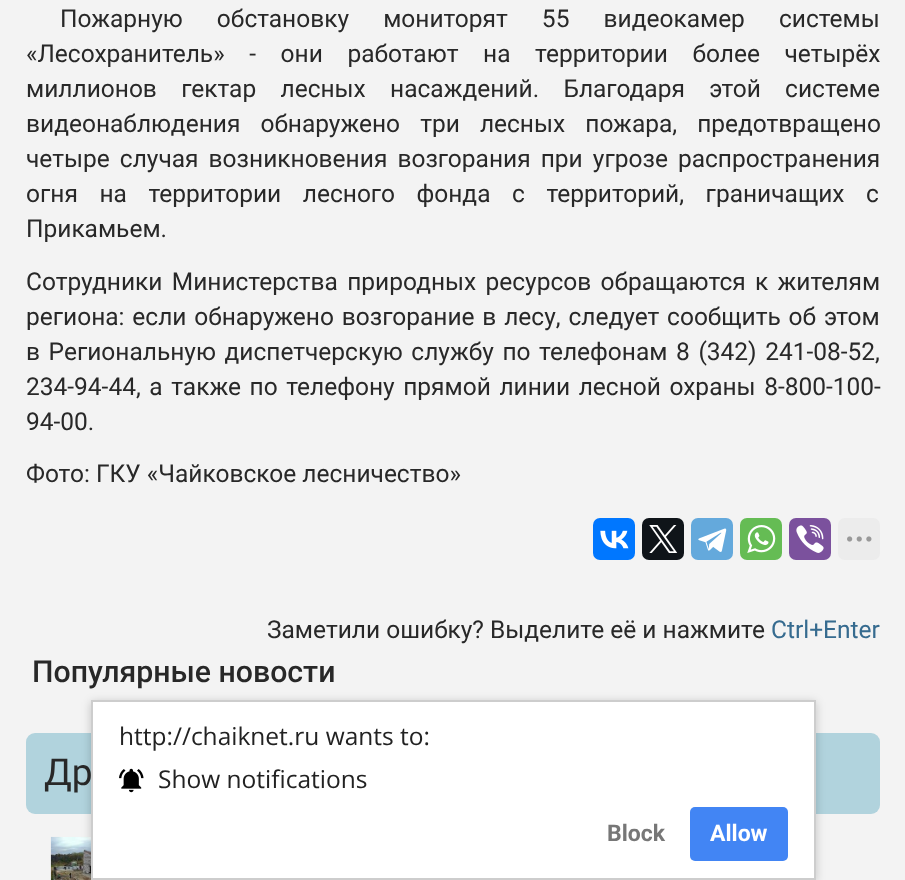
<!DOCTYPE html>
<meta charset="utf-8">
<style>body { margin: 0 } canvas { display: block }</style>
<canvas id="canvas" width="905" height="880"></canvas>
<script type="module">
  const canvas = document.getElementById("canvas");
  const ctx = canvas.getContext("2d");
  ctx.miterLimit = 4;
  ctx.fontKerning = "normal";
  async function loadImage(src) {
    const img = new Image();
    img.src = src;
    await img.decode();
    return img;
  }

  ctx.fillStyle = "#f3f3f3";
  ctx.fillRect(0, 0, 905, 880);
  ctx.wordSpacing = "28px";
  ctx.font = "24.5px Roboto";
  ctx.fillStyle = "#282828";
  ctx.fillText("Пожарную обстановку мониторят 55 видеокамер системы", 60, 27);
  ctx.wordSpacing = "18.5px";
  ctx.fillText("«Лесохранитель» - они работают на территории более четырёх", 26, 62);
  ctx.wordSpacing = "18.25px";
  ctx.fillText("миллионов гектар лесных насаждений. Благодаря этой системе", 26, 97);
  ctx.wordSpacing = "14px";
  ctx.fillText("видеонаблюдения обнаружено три лесных пожара, предотвращено", 26, 132);
  ctx.wordSpacing = "4px";
  ctx.fillText("четыре случая возникновения возгорания при угрозе распространения", 26, 167);
  ctx.wordSpacing = "15.5px";
  ctx.fillText("огня на территории лесного фонда с территорий, граничащих с", 26, 202);
  ctx.wordSpacing = "0px";
  ctx.fillText("Прикамьем.", 26, 237);
  ctx.wordSpacing = "3.25px";
  ctx.fillText("Сотрудники Министерства природных ресурсов обращаются к жителям", 26, 290);
  ctx.wordSpacing = "1.75px";
  ctx.fillText("региона: если обнаружено возгорание в лесу, следует сообщить об этом", 26, 325);
  ctx.wordSpacing = "2.5px";
  ctx.fillText("в Региональную диспетчерскую службу по телефонам 8 (342) 241-08-52,", 26, 360);
  ctx.fillText("234-94-44, а также по телефону прямой линии лесной охраны 8-800-100-", 26, 395);
  ctx.wordSpacing = "0px";
  ctx.fillText("94-00.", 26, 430);
  ctx.fillText("Фото: ГКУ «Чайковское лесничество»", 26, 482);
  ctx.fillStyle = "#0077ff";
  ctx.beginPath();
  ctx.roundRect(593, 518, 42, 42, 7);
  ctx.fill();
  ctx.drawImage(await loadImage("img1.png"), 600, 530, 29, 19);
  ctx.fillStyle = "#0f1419";
  ctx.beginPath();
  ctx.roundRect(642, 518, 42, 42, 7);
  ctx.fill();
  ctx.drawImage(await loadImage("img2.png"), 649, 525, 29, 28);
  ctx.fillStyle = "#64a9dc";
  ctx.beginPath();
  ctx.roundRect(691, 518, 42, 42, 7);
  ctx.fill();
  ctx.drawImage(await loadImage("img3.png"), 698, 528, 29, 24);
  ctx.fillStyle = "#65bc54";
  ctx.beginPath();
  ctx.roundRect(740, 518, 42, 42, 7);
  ctx.fill();
  ctx.drawImage(await loadImage("img4.png"), 747, 525, 29, 28);
  ctx.fillStyle = "#7b519d";
  ctx.beginPath();
  ctx.roundRect(789, 518, 42, 42, 7);
  ctx.fill();
  ctx.drawImage(await loadImage("img5.png"), 796, 525, 28, 28);
  ctx.fillStyle = "#ececec";
  ctx.beginPath();
  ctx.roundRect(838, 518, 42, 42, 7);
  ctx.fill();
  ctx.drawImage(await loadImage("img6.png"), 847, 536, 25, 6);
  ctx.fillStyle = "#282828";
  ctx.fillText("Заметили ошибку? Выделите её и нажмите", 267, 638);
  ctx.fillStyle = "#366b8f";
  ctx.fillText("Ctrl+Enter", 771, 638);
  ctx.font = "500 30.25px Roboto";
  ctx.fillStyle = "#282828";
  ctx.fillText("Популярные новости", 32, 682);
  ctx.fillStyle = "#b1d3dd";
  ctx.beginPath();
  ctx.roundRect(26, 733, 854, 81, 9);
  ctx.fill();
  ctx.font = "37px Roboto";
  ctx.fillStyle = "#282828";
  ctx.fillText("Др", 44, 785);
  ctx.drawImage(await loadImage("img7.png"), 50, 836, 41, 44);
  ctx.fillStyle = "rgba(0, 0, 0, 0.2)";
  ctx.filter = "blur(5px)";
  ctx.beginPath();
  ctx.rect(91, 702, 725, 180);
  ctx.fill();
  ctx.filter = "none";
  ctx.fillStyle = "#ffffff";
  ctx.beginPath();
  ctx.rect(92, 701, 723, 178);
  ctx.fill();
  ctx.strokeStyle = "#cdcdcd";
  ctx.lineWidth = 2;
  ctx.stroke();
  ctx.font = "24.5px Open Sans";
  ctx.fillStyle = "#222222";
  ctx.fillText("http://chaiknet.ru wants to:", 119, 745);
  ctx.drawImage(await loadImage("img8.png"), 119, 768, 25, 25);
  ctx.fillText("Show notifications", 158, 788);
  ctx.font = "bold 23px Roboto";
  ctx.fillStyle = "#777777";
  ctx.fillText("Block", 607, 841);
  ctx.fillStyle = "#4285f4";
  ctx.beginPath();
  ctx.roundRect(690, 807, 98, 54, 5);
  ctx.fill();
  ctx.fillStyle = "#ffffff";
  ctx.fillText("Allow", 710, 841);
</script>
